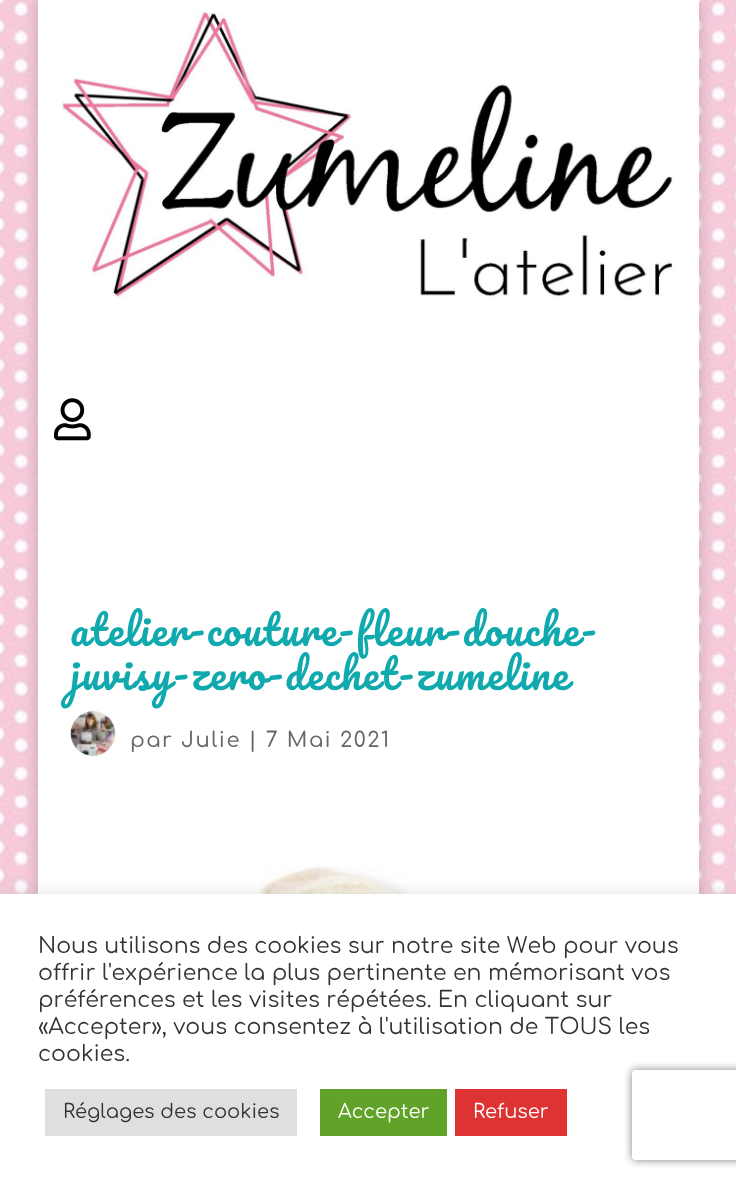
<!DOCTYPE html>
<meta charset="utf-8">
<style>body { margin: 0 } canvas { display: block }</style>
<canvas id="canvas" width="736" height="1180"></canvas>
<script type="module">
  const canvas = document.getElementById("canvas");
  const ctx = canvas.getContext("2d");
  ctx.miterLimit = 4;
  ctx.fontKerning = "none";
  async function loadImage(src) {
    const img = new Image();
    img.src = src;
    await img.decode();
    return img;
  }

  ctx.fillStyle = "#ffffff";
  ctx.fillRect(0, 0, 736, 1180);
  ctx.drawImage(await loadImage("img1.png"), 0, 0, 736, 894);
  ctx.fillStyle = "rgba(0, 0, 0, 0.2)";
  ctx.filter = "blur(7.5px)";
  ctx.beginPath();
  ctx.rect(38, 0, 661, 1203);
  ctx.fill();
  ctx.filter = "none";
  ctx.fillStyle = "#ffffff";
  ctx.fillRect(38, 0, 661, 894);
  ctx.drawImage(await loadImage("img2.png"), 61, 9, 613, 290);
  ctx.drawImage(await loadImage("img3.png"), 54, 398, 37, 43);
  ctx.letterSpacing = "1.5px";
  ctx.font = "40.5px Pacifico";
  ctx.fillStyle = "#10a9ae";
  ctx.fillText("atelier-couture-fleur-douche-", 70, 646);
  ctx.fillText("juvisy-zero-dechet-zumeline", 70, 690);
  ctx.drawImage(await loadImage("img4.png"), 70, 711, 46, 45);
  ctx.font = "500 21px Comfortaa";
  ctx.fillStyle = "#666666";
  ctx.fillText("par Julie | 7 Mai 2021", 130, 747);
  ctx.drawImage(await loadImage("img5.png"), 141, 865, 489, 29);
  ctx.fillStyle = "rgba(172, 171, 171, 0.3)";
  ctx.filter = "blur(7.5px)";
  ctx.beginPath();
  ctx.rect(0, 893, 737, 286);
  ctx.fill();
  ctx.filter = "none";
  ctx.fillStyle = "#ffffff";
  ctx.fillRect(0, 894, 736, 286);
  ctx.letterSpacing = "0px";
  ctx.font = "22px Comfortaa";
  ctx.fillStyle = "#333333";
  ctx.fillText("Nous utilisons des cookies sur notre site Web pour vous", 38, 953);
  ctx.fillText("offrir l'expérience la plus pertinente en mémorisant vos", 38, 980);
  ctx.fillText("préférences et les visites répétées. En cliquant sur", 38, 1007);
  ctx.fillText("«Accepter», vous consentez à l'utilisation de TOUS les", 38, 1034);
  ctx.fillText("cookies.", 38, 1061);
  ctx.fillStyle = "#dedfe0";
  ctx.fillRect(45, 1089, 252, 47);
  ctx.font = "19.5px Comfortaa";
  ctx.fillStyle = "#333333";
  ctx.fillText("Réglages des cookies", 63, 1118);
  ctx.fillStyle = "#61a229";
  ctx.fillRect(320, 1089, 127, 47);
  ctx.fillStyle = "#ffffff";
  ctx.fillText("Accepter", 338, 1118);
  ctx.fillStyle = "#dd3333";
  ctx.fillRect(455, 1089, 112, 47);
  ctx.fillStyle = "#ffffff";
  ctx.fillText("Refuser", 473, 1118);
  ctx.save();
  ctx.beginPath();
  ctx.moveTo(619, 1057);
  ctx.lineTo(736, 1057);
  ctx.lineTo(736, 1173);
  ctx.lineTo(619, 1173);
  ctx.closePath();
  ctx.moveTo(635, 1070);
  ctx.lineTo(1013, 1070);
  ctx.bezierCurveTo(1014.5, 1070, 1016, 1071.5, 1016, 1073);
  ctx.lineTo(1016, 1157);
  ctx.bezierCurveTo(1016, 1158.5, 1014.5, 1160, 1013, 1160);
  ctx.lineTo(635, 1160);
  ctx.bezierCurveTo(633.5, 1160, 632, 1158.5, 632, 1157);
  ctx.lineTo(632, 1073);
  ctx.bezierCurveTo(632, 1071.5, 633.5, 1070, 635, 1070);
  ctx.closePath();
  ctx.clip("evenodd");
  ctx.fillStyle = "#808080";
  ctx.filter = "blur(4px)";
  ctx.beginPath();
  ctx.roundRect(632, 1070, 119, 90, 3);
  ctx.fill();
  ctx.filter = "none";
  ctx.restore();
</script>
